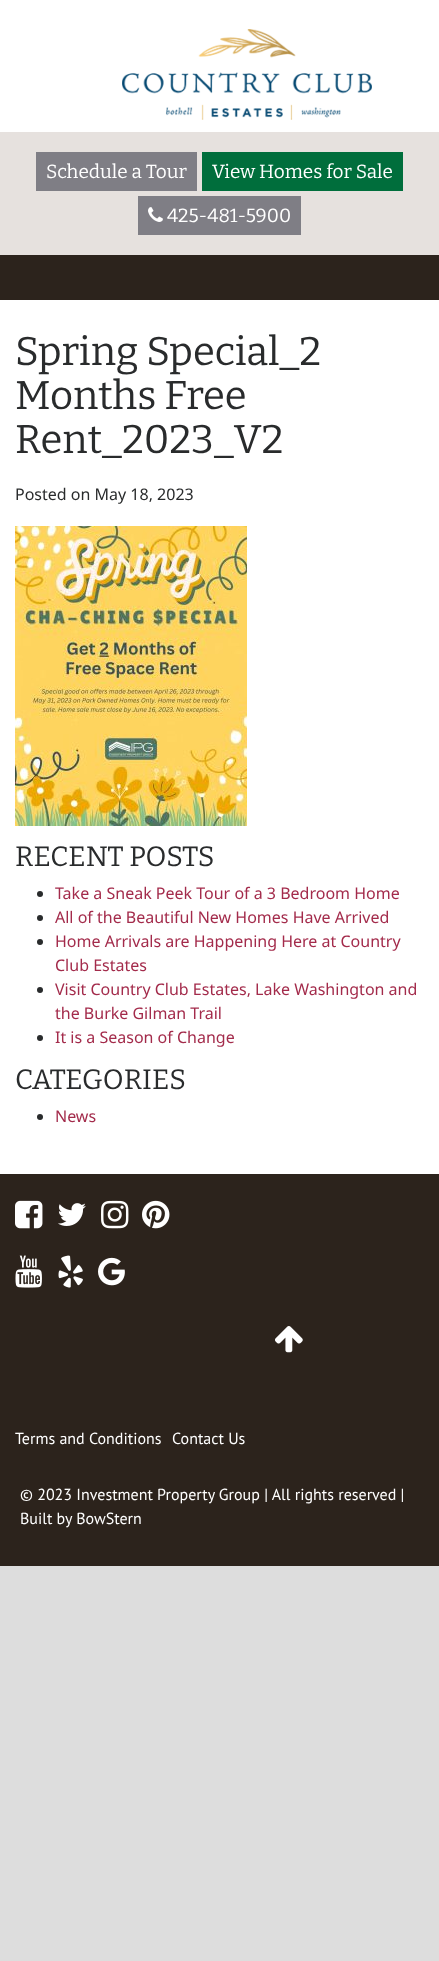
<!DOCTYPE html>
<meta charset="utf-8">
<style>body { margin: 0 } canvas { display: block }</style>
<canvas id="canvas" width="439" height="1961"></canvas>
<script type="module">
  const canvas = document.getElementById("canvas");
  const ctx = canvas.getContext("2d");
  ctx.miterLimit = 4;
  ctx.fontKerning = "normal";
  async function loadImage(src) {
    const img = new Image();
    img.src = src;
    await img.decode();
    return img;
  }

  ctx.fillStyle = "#dddddd";
  ctx.fillRect(0, 0, 439, 1961);
  ctx.fillStyle = "#ffffff";
  ctx.fillRect(0, 0, 439, 132);
  ctx.drawImage(await loadImage("img1.png"), 122, 29, 250, 91);
  ctx.fillStyle = "#e6e1de";
  ctx.fillRect(0, 132, 439, 123);
  ctx.fillStyle = "#7f7e85";
  ctx.fillRect(36, 152, 161, 39);
  ctx.font = "100 19px Bitter";
  ctx.fillStyle = "#ffffff";
  ctx.fillText("Schedule a Tour", 46, 178);
  ctx.fillStyle = "#006e3c";
  ctx.fillRect(202, 152, 201, 39);
  ctx.fillStyle = "#ffffff";
  ctx.fillText("View Homes for Sale", 212, 178);
  ctx.fillStyle = "#7f7e85";
  ctx.fillRect(138, 196, 163, 39);
  ctx.drawImage(await loadImage("img2.png"), 148, 207, 15, 15);
  ctx.fillStyle = "#ffffff";
  ctx.fillText("425-481-5900", 167, 222);
  ctx.fillStyle = "#2c231c";
  ctx.fillRect(0, 255, 439, 45);
  ctx.fillStyle = "#ffffff";
  ctx.fillRect(0, 300, 439, 874);
  ctx.font = "100 40px Bitter";
  ctx.fillStyle = "#292b2c";
  ctx.fillText("Spring Special_2", 15, 365);
  ctx.fillText("Months Free", 15, 409);
  ctx.fillText("Rent_2023_V2", 15, 453);
  ctx.font = "16px Noto Sans";
  ctx.fillText("Posted on May 18, 2023", 15, 500);
  ctx.drawImage(await loadImage("img3.png"), 15, 526, 232, 300);
  ctx.font = "100 28px Bitter";
  ctx.fillText("RECENT POSTS", 15, 866);
  ctx.beginPath();
  ctx.arc(40, 894, 3, 0, Math.PI * 2);
  ctx.fill();
  ctx.font = "16px Noto Sans";
  ctx.fillStyle = "#a32b4b";
  ctx.fillText("Take a Sneak Peek Tour of a 3 Bedroom Home", 55, 899);
  ctx.fillStyle = "#292b2c";
  ctx.beginPath();
  ctx.arc(40, 918, 3, 0, Math.PI * 2);
  ctx.fill();
  ctx.fillStyle = "#a32b4b";
  ctx.fillText("All of the Beautiful New Homes Have Arrived", 55, 923);
  ctx.fillStyle = "#292b2c";
  ctx.beginPath();
  ctx.arc(40, 942, 3, 0, Math.PI * 2);
  ctx.fill();
  ctx.fillStyle = "#a32b4b";
  ctx.fillText("Home Arrivals are Happening Here at Country", 55, 947);
  ctx.fillText("Club Estates", 55, 971);
  ctx.fillStyle = "#292b2c";
  ctx.beginPath();
  ctx.arc(40, 990, 3, 0, Math.PI * 2);
  ctx.fill();
  ctx.fillStyle = "#a32b4b";
  ctx.fillText("Visit Country Club Estates, Lake Washington and", 55, 995);
  ctx.fillText("the Burke Gilman Trail", 55, 1019);
  ctx.fillStyle = "#292b2c";
  ctx.beginPath();
  ctx.arc(40, 1038, 3, 0, Math.PI * 2);
  ctx.fill();
  ctx.fillStyle = "#a32b4b";
  ctx.fillText("It is a Season of Change", 55, 1043);
  ctx.font = "100 28px Bitter";
  ctx.fillStyle = "#292b2c";
  ctx.fillText("CATEGORIES", 15, 1089);
  ctx.beginPath();
  ctx.arc(40, 1117, 3, 0, Math.PI * 2);
  ctx.fill();
  ctx.font = "16px Noto Sans";
  ctx.fillStyle = "#a32b4b";
  ctx.fillText("News", 55, 1122);
  ctx.fillStyle = "#2c231c";
  ctx.fillRect(0, 1174, 439, 392);
  ctx.drawImage(await loadImage("img4.png"), 15, 1200, 28, 29);
  ctx.drawImage(await loadImage("img5.png"), 58, 1203, 28, 23);
  ctx.drawImage(await loadImage("img6.png"), 101, 1200, 28, 29);
  ctx.drawImage(await loadImage("img7.png"), 142, 1200, 28, 29);
  ctx.drawImage(await loadImage("img8.png"), 15, 1255, 27, 33);
  ctx.drawImage(await loadImage("img9.png"), 58, 1255, 25, 33);
  ctx.drawImage(await loadImage("img10.png"), 98, 1257, 27, 29);
  ctx.drawImage(await loadImage("img11.png"), 275, 1326, 28, 27);
  ctx.font = "16px PT Sans";
  ctx.fillStyle = "#ffffff";
  ctx.fillText("Terms and Conditions", 15, 1444);
  ctx.fillText("Contact Us", 172, 1444);
  ctx.fillText("© 2023 Investment Property Group | All rights reserved |", 20, 1500);
  ctx.fillText("Built by BowStern", 20, 1524);
</script>
